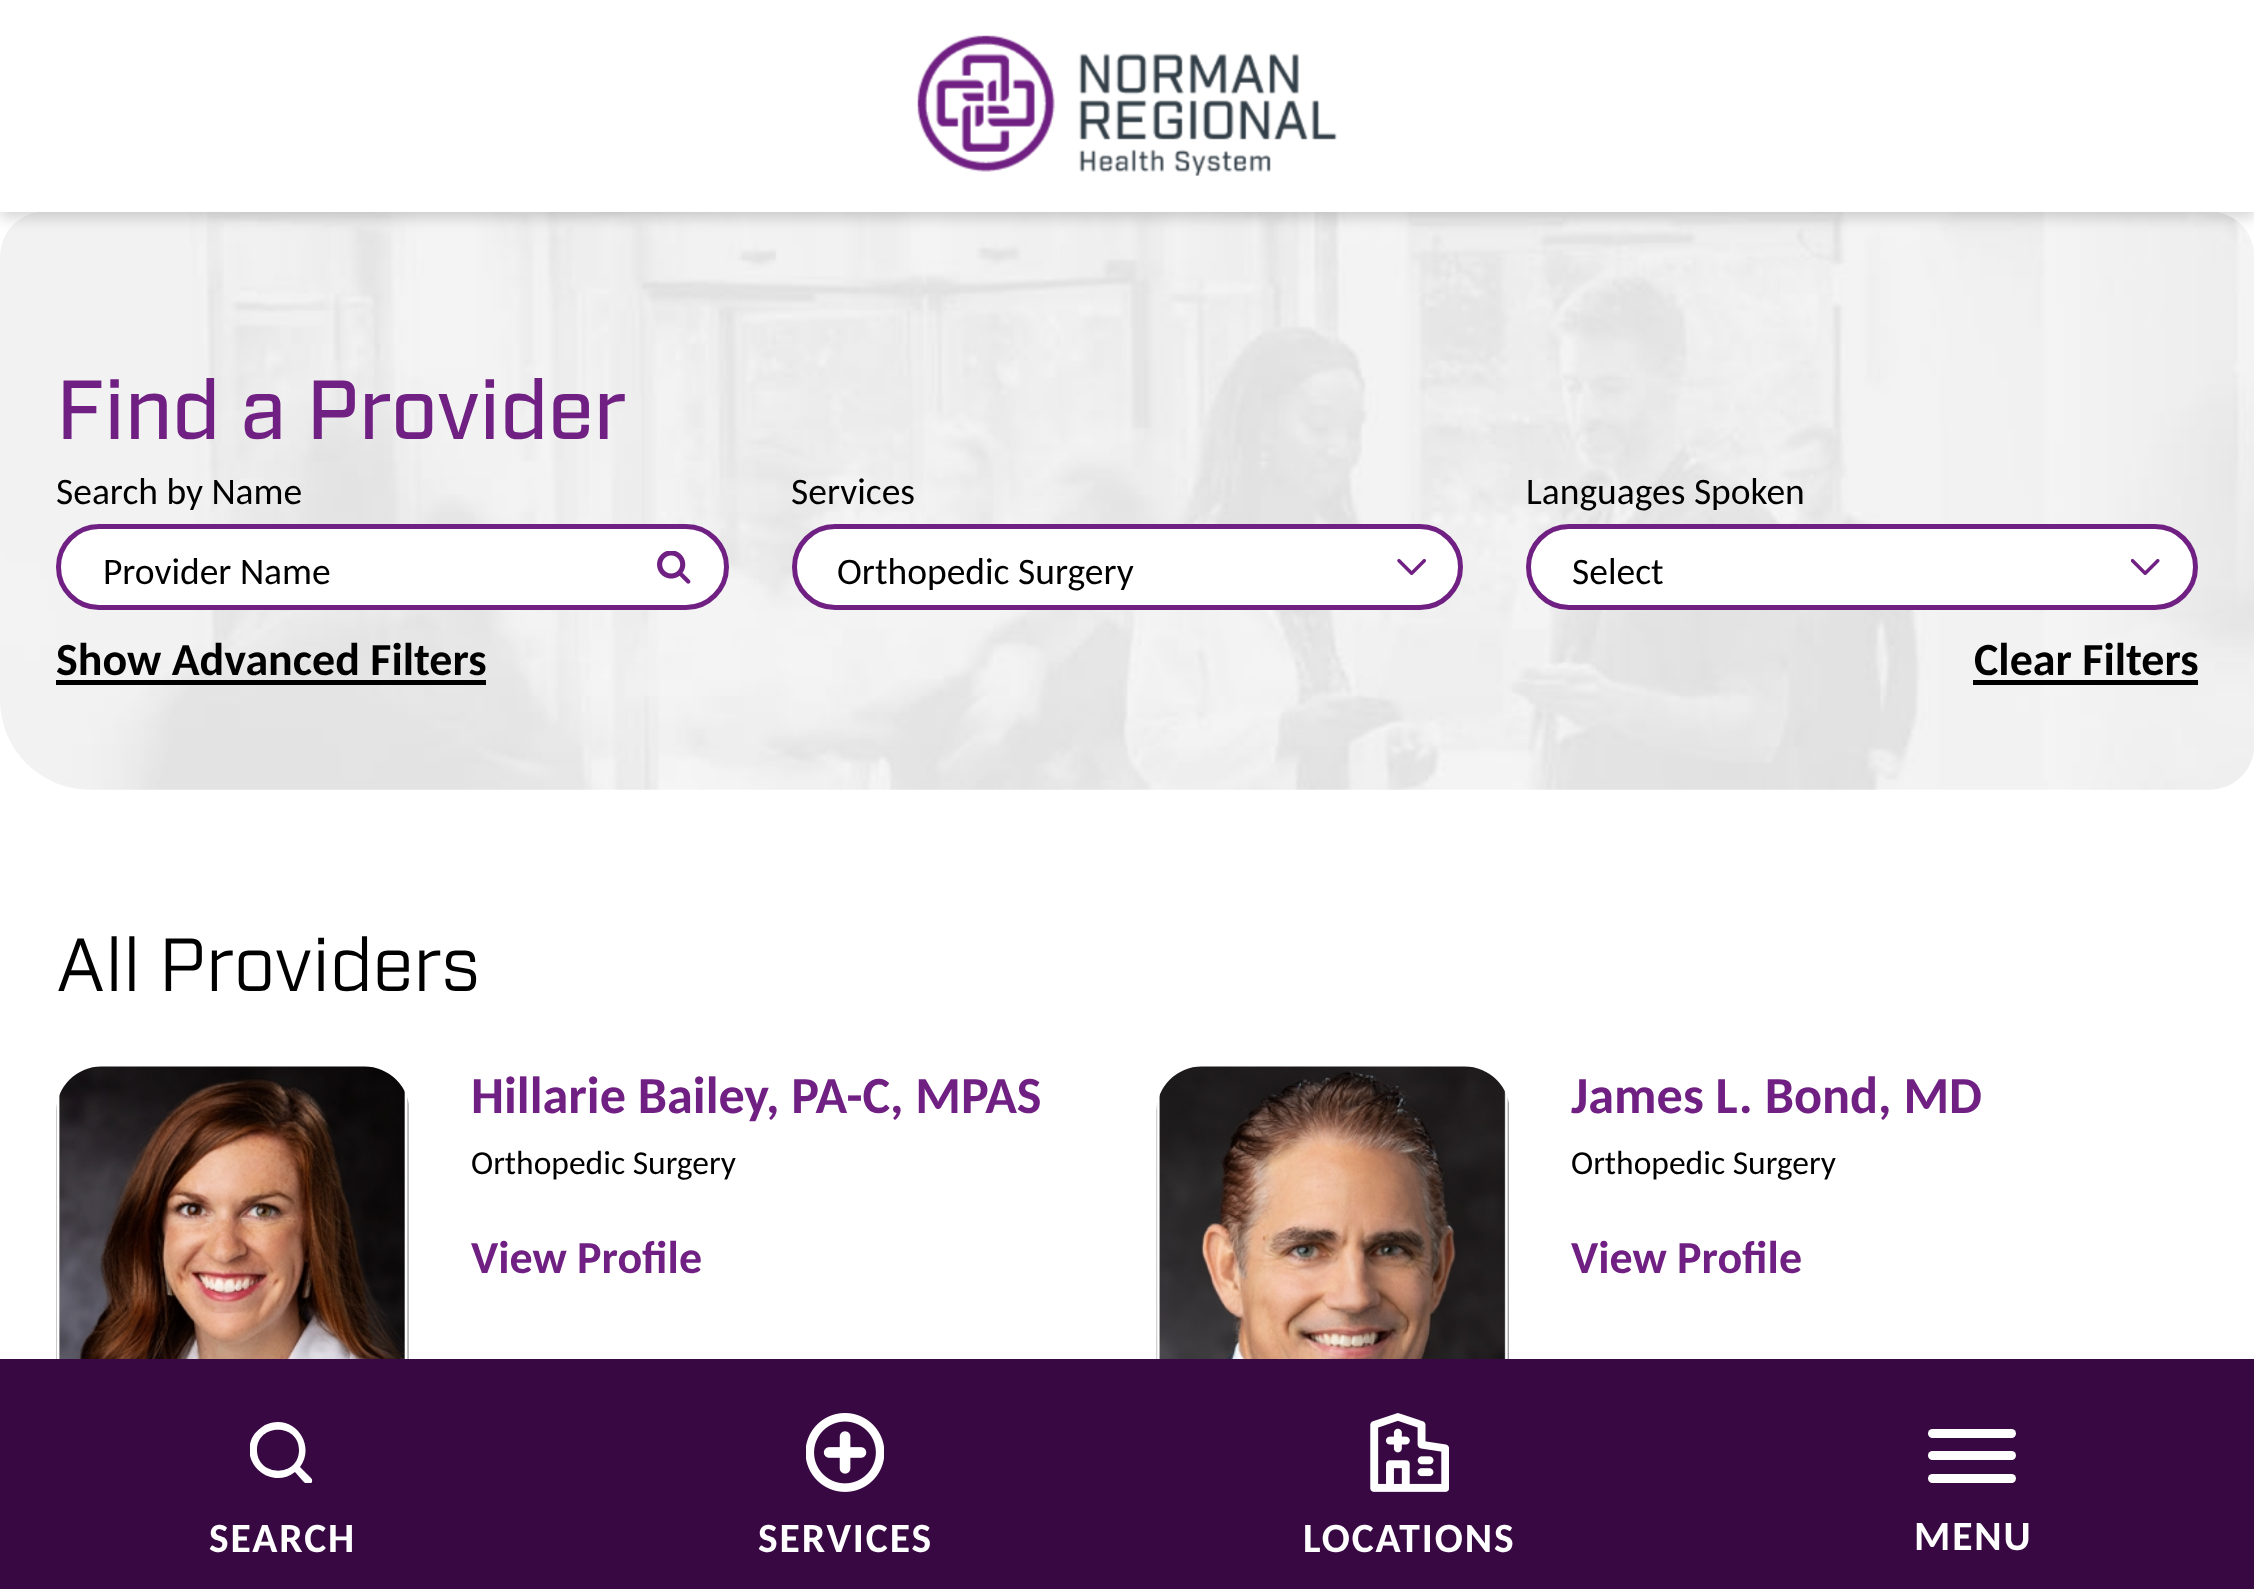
<!DOCTYPE html>
<meta charset="utf-8">
<style>body { margin: 0 } canvas { display: block }</style>
<canvas id="canvas" width="2254" height="1589"></canvas>
<script type="module">
  const canvas = document.getElementById("canvas");
  const ctx = canvas.getContext("2d");
  ctx.miterLimit = 4;
  ctx.fontKerning = "normal";
  async function loadImage(src) {
    const img = new Image();
    img.src = src;
    await img.decode();
    return img;
  }

  ctx.fillStyle = "#ffffff";
  ctx.fillRect(0, 0, 2254, 1589);
  ctx.drawImage(await loadImage("img1.png"), 0, 211, 2254, 579);
  ctx.font = "500 83.5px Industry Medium";
  ctx.fillStyle = "#702082";
  ctx.fillText("Find a Provider", 56, 439);
  ctx.font = "37.5px Carlito";
  ctx.fillStyle = "#000000";
  ctx.fillText("Search by Name", 56, 504);
  ctx.fillStyle = "#ffffff";
  ctx.beginPath();
  ctx.roundRect(58.5, 526.5, 668, 81, 40.5);
  ctx.fill();
  ctx.strokeStyle = "#702082";
  ctx.lineWidth = 5;
  ctx.stroke();
  ctx.fillStyle = "#000000";
  ctx.fillText("Provider Name", 103, 584);
  ctx.drawImage(await loadImage("img2.png"), 657, 551, 34, 33);
  ctx.fillText("Services", 791, 504);
  ctx.fillStyle = "#ffffff";
  ctx.beginPath();
  ctx.roundRect(794.5, 526.5, 666, 81, 40.5);
  ctx.fill();
  ctx.stroke();
  ctx.fillStyle = "#000000";
  ctx.fillText("Orthopedic Surgery", 837, 584);
  ctx.drawImage(await loadImage("img3.png"), 1397, 558, 29, 18);
  ctx.fillText("Languages Spoken", 1526, 504);
  ctx.fillStyle = "#ffffff";
  ctx.beginPath();
  ctx.roundRect(1528.5, 526.5, 667, 81, 40.5);
  ctx.fill();
  ctx.stroke();
  ctx.fillStyle = "#000000";
  ctx.fillText("Select", 1572, 584);
  ctx.drawImage(await loadImage("img4.png"), 2131, 558, 29, 18);
  ctx.font = "bold 46px Carlito";
  ctx.fillText("Show Advanced Filters", 56, 675);
  ctx.fillRect(56, 680, 430, 5);
  ctx.fillText("Clear Filters", 1974, 675);
  ctx.fillRect(1973, 680, 225, 5);
  ctx.font = "75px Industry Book";
  ctx.fillText("All Providers", 56, 991);
  ctx.drawImage(await loadImage("img5.png"), 56, 1066, 353, 293);
  ctx.font = "bold 52.25px Carlito";
  ctx.fillStyle = "#702082";
  ctx.fillText("Hillarie Bailey, PA-C, MPAS", 471, 1113);
  ctx.font = "33.5px Carlito";
  ctx.fillStyle = "#000000";
  ctx.fillText("Orthopedic Surgery", 471, 1174);
  ctx.font = "bold 46px Carlito";
  ctx.fillStyle = "#702082";
  ctx.fillText("View Profile", 471, 1273);
  ctx.drawImage(await loadImage("img6.png"), 1156, 1066, 353, 293);
  ctx.font = "bold 52.25px Carlito";
  ctx.fillText("James L. Bond, MD", 1571, 1113);
  ctx.font = "33.5px Carlito";
  ctx.fillStyle = "#000000";
  ctx.fillText("Orthopedic Surgery", 1571, 1174);
  ctx.font = "bold 46px Carlito";
  ctx.fillStyle = "#702082";
  ctx.fillText("View Profile", 1571, 1273);
  ctx.save();
  ctx.beginPath();
  ctx.moveTo(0, 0);
  ctx.lineTo(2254, 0);
  ctx.lineTo(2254, 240);
  ctx.lineTo(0, 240);
  ctx.closePath();
  ctx.moveTo(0, 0);
  ctx.lineTo(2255, 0);
  ctx.lineTo(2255, 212);
  ctx.lineTo(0, 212);
  ctx.closePath();
  ctx.clip("evenodd");
  ctx.fillStyle = "rgba(0, 0, 0, 0.16)";
  ctx.filter = "blur(7px)";
  ctx.beginPath();
  ctx.rect(0, 7, 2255, 211);
  ctx.fill();
  ctx.filter = "none";
  ctx.restore();
  ctx.fillStyle = "rgba(255, 255, 255, 0.95)";
  ctx.fillRect(0, 211, 2254, 1);
  ctx.drawImage(await loadImage("img7.png"), 917, 35, 420, 141);
  ctx.fillStyle = "#380843";
  ctx.fillRect(0, 1359, 2254, 230);
  ctx.save();
  ctx.beginPath();
  ctx.rect(250, 1422, 63, 61);
  ctx.clip();
  ctx.fillStyle = "#ffffff";
  ctx.beginPath();
  ctx.moveTo(311, 1478);
  ctx.lineTo(300, 1467);
  ctx.bezierCurveTo(310, 1454, 306, 1435, 292, 1426);
  ctx.bezierCurveTo(284, 1421, 274, 1421, 265, 1425);
  ctx.bezierCurveTo(260, 1428, 255, 1432, 252, 1438);
  ctx.bezierCurveTo(240, 1465, 272, 1490, 295, 1472);
  ctx.lineTo(302, 1480);
  ctx.bezierCurveTo(304, 1482, 307, 1486, 311, 1484);
  ctx.bezierCurveTo(312, 1482, 313, 1480, 311, 1478);
  ctx.closePath();
  ctx.moveTo(257, 1450);
  ctx.bezierCurveTo(257, 1423, 299, 1423, 299, 1450);
  ctx.bezierCurveTo(299, 1478, 257, 1477, 257, 1450);
  ctx.closePath();
  ctx.fill();
  ctx.restore();
  ctx.letterSpacing = "1.9px";
  ctx.font = "bold 41.5px Carlito";
  ctx.fillStyle = "#ffffff";
  ctx.fillText("SEARCH", 209, 1552);
  ctx.drawImage(await loadImage("img8.png"), 806, 1413, 78, 79);
  ctx.fillText("SERVICES", 758, 1552);
  ctx.drawImage(await loadImage("img9.png"), 1370, 1413, 79, 79);
  ctx.fillText("LOCATIONS", 1303, 1552);
  ctx.beginPath();
  ctx.roundRect(1928, 1429, 88, 9, 4.5);
  ctx.fill();
  ctx.beginPath();
  ctx.roundRect(1928, 1451, 88, 9, 4.5);
  ctx.fill();
  ctx.beginPath();
  ctx.roundRect(1928, 1474, 88, 9, 4.5);
  ctx.fill();
  ctx.fillText("MENU", 1914, 1550);
</script>
